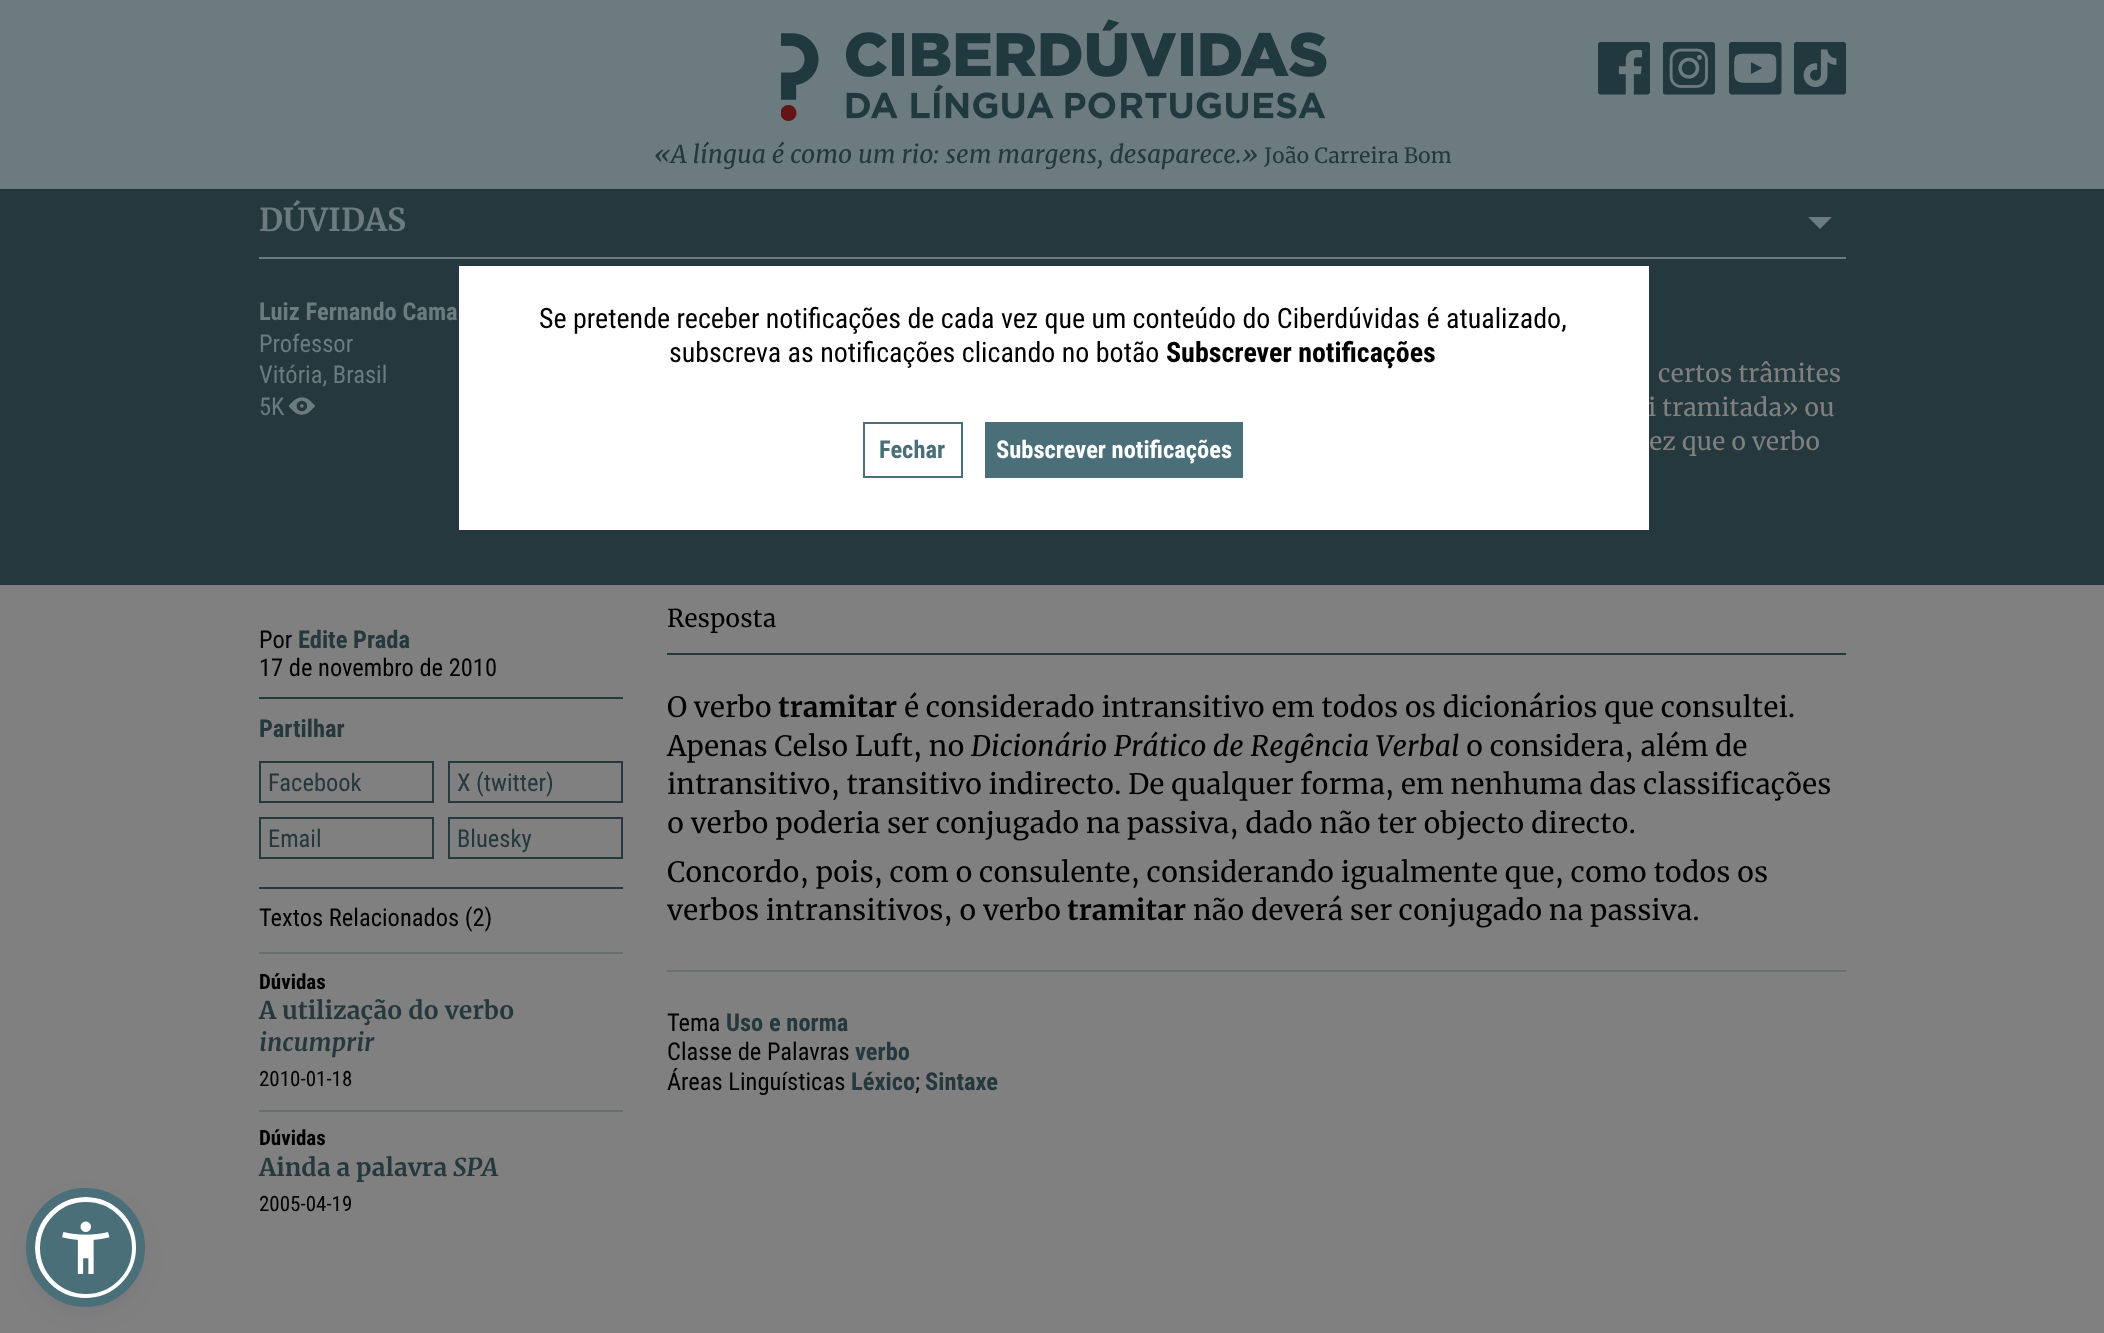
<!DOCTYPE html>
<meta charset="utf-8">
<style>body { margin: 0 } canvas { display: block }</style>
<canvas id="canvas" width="2104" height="1333"></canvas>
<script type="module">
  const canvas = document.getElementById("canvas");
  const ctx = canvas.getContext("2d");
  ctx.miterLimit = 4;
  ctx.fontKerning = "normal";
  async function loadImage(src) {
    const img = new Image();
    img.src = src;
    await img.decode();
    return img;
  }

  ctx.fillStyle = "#808080";
  ctx.fillRect(0, 0, 2104, 1333);
  ctx.fillStyle = "#6b7b80";
  ctx.fillRect(0, 0, 2104, 189);
  ctx.drawImage(await loadImage("img1.png"), 781, 19, 546, 102);
  ctx.drawImage(await loadImage("img2.png"), 1598, 42, 52, 53);
  ctx.drawImage(await loadImage("img3.png"), 1663, 42, 52, 53);
  ctx.drawImage(await loadImage("img4.png"), 1729, 42, 53, 53);
  ctx.drawImage(await loadImage("img5.png"), 1794, 42, 52, 53);
  ctx.font = "italic 24.5px Merriweather";
  ctx.fillStyle = "#25383d";
  ctx.fillText("«A língua é como um rio: sem margens, desaparece.»", 654, 163);
  ctx.font = "21px Merriweather";
  ctx.fillText("João Carreira Bom", 1264, 163);
  ctx.fillRect(0, 189, 2104, 396);
  ctx.fillStyle = "#6b7b80";
  ctx.fillRect(259, 257, 1587, 2);
  ctx.font = "bold 31.5px Merriweather";
  ctx.fillText("DÚVIDAS", 259, 231);
  ctx.beginPath();
  ctx.moveTo(1808, 217);
  ctx.lineTo(1832, 217);
  ctx.lineTo(1820, 229);
  ctx.closePath();
  ctx.fill();
  ctx.font = "bold 24.5px Roboto Condensed";
  ctx.fillText("Luiz Fernando Cama", 259, 320);
  ctx.font = "24.5px Roboto Condensed";
  ctx.fillText("Professor", 259, 352);
  ctx.fillText("Vitória, Brasil", 259, 383);
  ctx.fillText("5K", 259, 415);
  ctx.drawImage(await loadImage("img6.png"), 289, 397, 26, 18);
  ctx.font = "24.5px Merriweather";
  ctx.fillStyle = "#808080";
  ctx.fillText("certos trâmites", 1658, 382);
  ctx.fillText("i tramitada» ou", 1648, 416);
  ctx.fillText("ez que o verbo", 1649, 450);
  ctx.font = "24.5px Roboto Condensed";
  ctx.fillStyle = "#000000";
  ctx.fillText("Por", 259, 648);
  ctx.font = "bold 24.5px Roboto Condensed";
  ctx.fillStyle = "#25383d";
  ctx.fillText("Edite Prada", 298, 648);
  ctx.font = "24.5px Roboto Condensed";
  ctx.fillStyle = "#000000";
  ctx.fillText("17 de novembro de 2010", 259, 676);
  ctx.fillStyle = "#25383d";
  ctx.fillRect(259, 697, 364, 2);
  ctx.font = "bold 24.5px Roboto Condensed";
  ctx.fillText("Partilhar", 259, 737);
  ctx.strokeStyle = "#25383d";
  ctx.lineWidth = 2;
  ctx.strokeRect(260, 762, 173, 40);
  ctx.font = "24.5px Roboto Condensed";
  ctx.fillText("Facebook", 268, 791);
  ctx.strokeRect(449, 762, 173, 40);
  ctx.fillText("X (twitter)", 457, 791);
  ctx.strokeRect(260, 818, 173, 40);
  ctx.fillText("Email", 268, 847);
  ctx.strokeRect(449, 818, 173, 40);
  ctx.fillText("Bluesky", 457, 847);
  ctx.fillRect(259, 887, 364, 2);
  ctx.fillStyle = "#000000";
  ctx.fillText("Textos Relacionados (2)", 259, 926);
  ctx.fillStyle = "#696e6f";
  ctx.fillRect(259, 952, 364, 2);
  ctx.fillRect(259, 1110, 364, 2);
  ctx.font = "bold 21px Roboto Condensed";
  ctx.fillStyle = "#000000";
  ctx.fillText("Dúvidas", 259, 989);
  ctx.font = "bold 24.5px Merriweather";
  ctx.fillStyle = "#25383d";
  ctx.fillText("A utilização do verbo", 259, 1019);
  ctx.font = "italic bold 24.5px Merriweather";
  ctx.fillText("incumprir", 259, 1051);
  ctx.font = "21px Roboto Condensed";
  ctx.fillStyle = "#000000";
  ctx.fillText("2010-01-18", 259, 1086);
  ctx.font = "bold 21px Roboto Condensed";
  ctx.fillText("Dúvidas", 259, 1145);
  ctx.font = "bold 24.5px Merriweather";
  ctx.fillStyle = "#25383d";
  ctx.fillText("Ainda a palavra", 259, 1176);
  ctx.font = "italic bold 24.5px Merriweather";
  ctx.fillText("SPA", 453, 1176);
  ctx.font = "21px Roboto Condensed";
  ctx.fillStyle = "#000000";
  ctx.fillText("2005-04-19", 259, 1211);
  ctx.fillStyle = "#25383d";
  ctx.fillRect(667, 653, 1179, 2);
  ctx.font = "24.5px Merriweather";
  ctx.fillStyle = "#000000";
  ctx.fillText("Resposta", 667, 627);
  ctx.font = "28px Merriweather";
  ctx.fillText("O verbo", 667, 717);
  ctx.font = "bold 28px Merriweather";
  ctx.fillText("tramitar", 778, 717);
  ctx.font = "28px Merriweather";
  ctx.fillText("é considerado intransitivo em todos os dicionários que consultei.", 904, 717);
  ctx.fillText("Apenas Celso Luft, no", 667, 756);
  ctx.font = "italic 28px Merriweather";
  ctx.fillText("Dicionário Prático de Regência Verbal", 971, 756);
  ctx.font = "28px Merriweather";
  ctx.fillText("o considera, além de", 1466, 756);
  ctx.fillText("intransitivo, transitivo indirecto. De qualquer forma, em nenhuma das classificações", 667, 794);
  ctx.fillText("o verbo poderia ser conjugado na passiva, dado não ter objecto directo.", 667, 833);
  ctx.fillText("Concordo, pois, com o consulente, considerando igualmente que, como todos os", 667, 882);
  ctx.fillText("verbos intransitivos, o verbo", 667, 920);
  ctx.font = "bold 28px Merriweather";
  ctx.fillText("tramitar", 1067, 920);
  ctx.font = "28px Merriweather";
  ctx.fillText("não deverá ser conjugado na passiva.", 1193, 920);
  ctx.fillStyle = "#696e6f";
  ctx.fillRect(667, 970, 1179, 2);
  ctx.font = "24.5px Roboto Condensed";
  ctx.fillStyle = "#000000";
  ctx.fillText("Tema", 667, 1031);
  ctx.font = "bold 24.5px Roboto Condensed";
  ctx.fillStyle = "#25383d";
  ctx.fillText("Uso e norma", 726, 1031);
  ctx.font = "24.5px Roboto Condensed";
  ctx.fillStyle = "#000000";
  ctx.fillText("Classe de Palavras", 667, 1060);
  ctx.font = "bold 24.5px Roboto Condensed";
  ctx.fillStyle = "#25383d";
  ctx.fillText("verbo", 855, 1060);
  ctx.font = "24.5px Roboto Condensed";
  ctx.fillStyle = "#000000";
  ctx.fillText("Áreas Linguísticas", 667, 1090);
  ctx.font = "bold 24.5px Roboto Condensed";
  ctx.fillStyle = "#25383d";
  ctx.fillText("Léxico", 851, 1090);
  ctx.font = "24.5px Roboto Condensed";
  ctx.fillStyle = "#000000";
  ctx.fillText(";", 915, 1090);
  ctx.font = "bold 24.5px Roboto Condensed";
  ctx.fillStyle = "#25383d";
  ctx.fillText("Sintaxe", 925, 1090);
  ctx.fillStyle = "#ffffff";
  ctx.fillRect(459, 266, 1190, 264);
  ctx.font = "28px Roboto Condensed";
  ctx.fillStyle = "#000000";
  ctx.fillText("Se pretende receber notificações de cada vez que um conteúdo do Ciberdúvidas é atualizado,", 539, 328);
  ctx.fillText("subscreva as notificações clicando no botão", 669, 362);
  ctx.font = "bold 28px Roboto Condensed";
  ctx.fillText("Subscrever notificações", 1166, 362);
  ctx.strokeStyle = "#4a6f79";
  ctx.strokeRect(864, 423, 98, 54);
  ctx.font = "bold 24.5px Roboto Condensed";
  ctx.fillStyle = "#4a6f79";
  ctx.fillText("Fechar", 879, 458);
  ctx.fillRect(985, 422, 258, 56);
  ctx.fillStyle = "#ffffff";
  ctx.fillText("Subscrever notificações", 996, 458);
  ctx.fillStyle = "rgba(37, 44, 97, 0.15)";
  ctx.filter = "blur(13px)";
  ctx.beginPath();
  ctx.roundRect(35, 1206, 102, 101, 50.5);
  ctx.fill();
  ctx.filter = "none";
  ctx.fillStyle = "#4a6f79";
  ctx.beginPath();
  ctx.arc(86, 1248, 48.5, 0, Math.PI * 2);
  ctx.fill();
  ctx.strokeStyle = "#ffffff";
  ctx.lineWidth = 5;
  ctx.stroke();
  ctx.beginPath();
  ctx.arc(85.5, 1247.5, 55, 0, Math.PI * 2);
  ctx.strokeStyle = "#4a6f79";
  ctx.lineWidth = 9;
  ctx.stroke();
  ctx.drawImage(await loadImage("img7.png"), 62, 1221, 48, 53);
</script>
